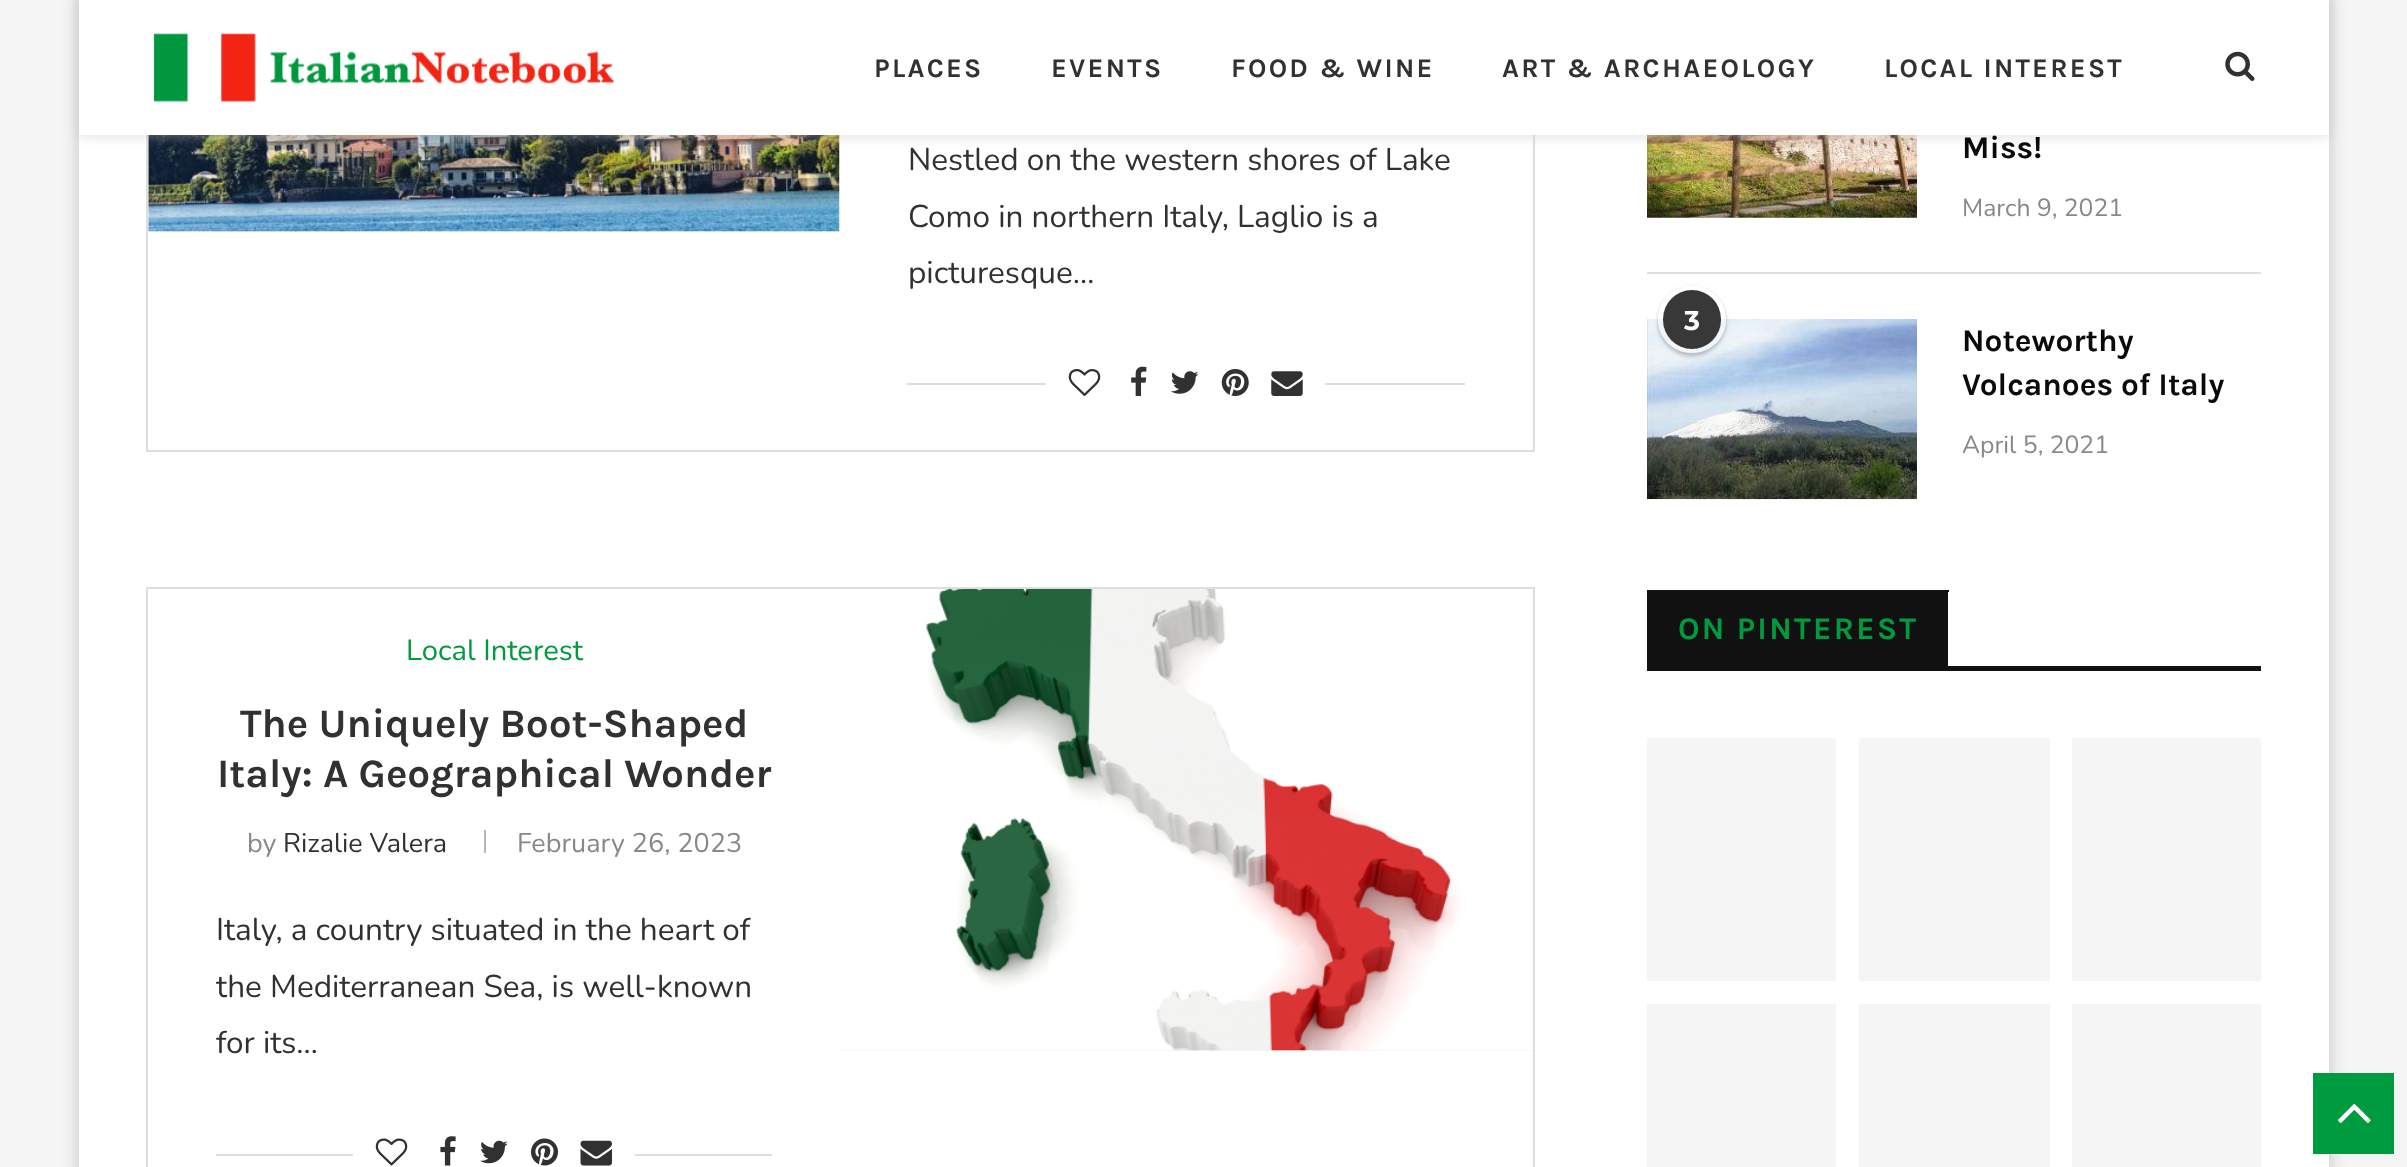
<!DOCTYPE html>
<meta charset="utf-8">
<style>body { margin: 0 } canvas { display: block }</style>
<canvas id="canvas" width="2407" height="1167"></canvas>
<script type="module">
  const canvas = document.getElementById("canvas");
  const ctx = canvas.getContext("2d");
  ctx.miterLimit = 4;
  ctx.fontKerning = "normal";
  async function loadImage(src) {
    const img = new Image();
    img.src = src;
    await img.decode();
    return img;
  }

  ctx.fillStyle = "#f5f5f5";
  ctx.fillRect(0, 0, 2407, 1167);
  ctx.fillStyle = "rgba(0, 0, 0, 0.2)";
  ctx.filter = "blur(9px)";
  ctx.beginPath();
  ctx.rect(79, -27, 2250, 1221);
  ctx.fill();
  ctx.filter = "none";
  ctx.fillStyle = "#ffffff";
  ctx.fillRect(79, 135, 2250, 1032);
  ctx.strokeStyle = "#dedede";
  ctx.lineWidth = 2;
  ctx.strokeRect(147, -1, 1387, 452);
  ctx.fillStyle = "#f5f5f5";
  ctx.fillRect(149, 231, 690, 1);
  ctx.drawImage(await loadImage("img3.png"), 148, 135, 692, 97);
  ctx.drawImage(await loadImage("img15.png"), 1647, 135, 270, 83);
  ctx.fillStyle = "rgba(190, 190, 190, 0.46)";
  ctx.filter = "blur(5.5px)";
  ctx.beginPath();
  ctx.rect(79, 2, 2250, 135);
  ctx.fill();
  ctx.filter = "none";
  ctx.fillStyle = "#ffffff";
  ctx.fillRect(79, 0, 2250, 135);
  ctx.drawImage(await loadImage("img1.png"), 153, 33, 461, 69);
  ctx.letterSpacing = "2.25px";
  ctx.font = "bold 27px Karla";
  ctx.fillStyle = "#313131";
  ctx.fillText("PLACES", 874, 77);
  ctx.fillText("EVENTS", 1051, 77);
  ctx.fillText("FOOD & WINE", 1231, 77);
  ctx.fillText("ART & ARCHAEOLOGY", 1502, 77);
  ctx.fillText("LOCAL INTEREST", 1884, 77);
  ctx.drawImage(await loadImage("img2.png"), 2225, 51, 30, 30);
  ctx.letterSpacing = "0px";
  ctx.font = "31.5px Nunito";
  ctx.fillText("Nestled on the western shores of Lake", 908, 170);
  ctx.fillText("Como in northern Italy, Laglio is a", 908, 227);
  ctx.fillText("picturesque…", 908, 283);
  ctx.fillStyle = "#dedede";
  ctx.fillRect(907, 383, 558, 2);
  ctx.fillStyle = "#ffffff";
  ctx.fillRect(1046, 383, 279, 2);
  ctx.drawImage(await loadImage("img4.png"), 1068, 369, 33, 27);
  ctx.drawImage(await loadImage("img5.png"), 1131, 366, 16, 30);
  ctx.drawImage(await loadImage("img6.png"), 1171, 371, 28, 23);
  ctx.drawImage(await loadImage("img7.png"), 1221, 369, 28, 27);
  ctx.drawImage(await loadImage("img8.png"), 1271, 371, 32, 25);
  ctx.strokeRect(147, 588, 1387, 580);
  ctx.font = "29.25px Nunito";
  ctx.fillStyle = "#009a3f";
  ctx.fillText("Local Interest", 406, 660);
  ctx.font = "bold 40.5px Karla";
  ctx.fillStyle = "#313131";
  ctx.fillText("The Uniquely Boot-Shaped", 240, 737);
  ctx.fillText("Italy: A Geographical Wonder", 217, 787);
  ctx.font = "27px Nunito";
  ctx.fillStyle = "#888888";
  ctx.fillText("by", 247, 852);
  ctx.fillStyle = "#313131";
  ctx.fillText("Rizalie Valera", 283, 852);
  ctx.fillStyle = "#b8b8b8";
  ctx.fillRect(484, 830, 2, 23);
  ctx.fillStyle = "#888888";
  ctx.fillText("February 26, 2023", 517, 852);
  ctx.font = "31.5px Nunito";
  ctx.fillStyle = "#313131";
  ctx.fillText("Italy, a country situated in the heart of", 216, 940);
  ctx.fillText("the Mediterranean Sea, is well-known", 216, 997);
  ctx.fillText("for its…", 216, 1053);
  ctx.fillStyle = "#dedede";
  ctx.fillRect(216, 1154, 556, 2);
  ctx.fillStyle = "#ffffff";
  ctx.fillRect(353, 1154, 282, 2);
  ctx.drawImage(await loadImage("img9.png"), 375, 1138, 33, 28);
  ctx.drawImage(await loadImage("img10.png"), 440, 1136, 16, 30);
  ctx.drawImage(await loadImage("img11.png"), 480, 1140, 28, 24);
  ctx.drawImage(await loadImage("img12.png"), 531, 1138, 27, 28);
  ctx.drawImage(await loadImage("img13.png"), 580, 1140, 32, 26);
  ctx.fillStyle = "#f5f5f5";
  ctx.fillRect(839, 590, 693, 461);
  ctx.drawImage(await loadImage("img14.png"), 839, 589, 693, 462);
  ctx.fillStyle = "#dedede";
  ctx.fillRect(1647, 272, 614, 2);
  ctx.font = "bold 31.5px Karla";
  ctx.fillStyle = "#0a0a0a";
  ctx.fillText("Miss!", 1962, 158);
  ctx.font = "24.75px Nunito";
  ctx.fillStyle = "#888888";
  ctx.fillText("March 9, 2021", 1962, 216);
  ctx.drawImage(await loadImage("img16.png"), 1647, 319, 270, 180);
  ctx.save();
  ctx.beginPath();
  ctx.moveTo(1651, 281);
  ctx.lineTo(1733, 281);
  ctx.lineTo(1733, 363);
  ctx.lineTo(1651, 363);
  ctx.closePath();
  ctx.moveTo(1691.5, 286);
  ctx.lineTo(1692.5, 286);
  ctx.bezierCurveTo(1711, 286, 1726, 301, 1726, 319.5);
  ctx.bezierCurveTo(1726, 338, 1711, 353, 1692.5, 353);
  ctx.lineTo(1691.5, 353);
  ctx.bezierCurveTo(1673, 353, 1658, 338, 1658, 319.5);
  ctx.bezierCurveTo(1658, 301, 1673, 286, 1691.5, 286);
  ctx.closePath();
  ctx.clip("evenodd");
  ctx.fillStyle = "rgba(0, 0, 0, 0.25)";
  ctx.filter = "blur(2px)";
  ctx.beginPath();
  ctx.roundRect(1658, 288, 68, 68, 34);
  ctx.fill();
  ctx.filter = "none";
  ctx.restore();
  ctx.fillStyle = "rgba(255, 255, 255, 0.3)";
  ctx.beginPath();
  ctx.roundRect(1658, 286, 68, 67, 33.5);
  ctx.fill();
  ctx.fillStyle = "#383838";
  ctx.beginPath();
  ctx.roundRect(1663, 290, 58, 59, 29);
  ctx.fill();
  ctx.font = "bold 27px Montserrat";
  ctx.fillStyle = "#ffffff";
  ctx.fillText("3", 1684, 330);
  ctx.fillStyle = "#f5f5f5";
  ctx.fillRect(1647, 499, 270, 1);
  ctx.font = "bold 31.5px Karla";
  ctx.fillStyle = "#0a0a0a";
  ctx.fillText("Noteworthy", 1962, 351);
  ctx.fillText("Volcanoes of Italy", 1962, 395);
  ctx.font = "24.75px Nunito";
  ctx.fillStyle = "#888888";
  ctx.fillText("April 5, 2021", 1962, 453);
  ctx.fillStyle = "#111111";
  ctx.fillRect(1647, 666, 614, 5);
  ctx.fillRect(1652, 592, 294, 74);
  ctx.fillRect(1647, 590, 302, 2);
  ctx.fillRect(1946, 590, 2, 81);
  ctx.fillRect(1647, 590, 5, 81);
  ctx.letterSpacing = "2.25px";
  ctx.font = "bold 31.5px Karla";
  ctx.fillStyle = "#009a3f";
  ctx.fillText("ON PINTEREST", 1678, 639);
  ctx.fillStyle = "#f5f5f5";
  ctx.fillRect(1647, 738, 189, 243);
  ctx.fillRect(1859, 738, 191, 243);
  ctx.fillRect(2072, 738, 189, 243);
  ctx.fillRect(1647, 1004, 189, 163);
  ctx.fillRect(1859, 1004, 191, 163);
  ctx.fillRect(2072, 1004, 189, 163);
  ctx.fillStyle = "#009a3f";
  ctx.fillRect(2313, 1073, 81, 81);
  ctx.drawImage(await loadImage("img17.png"), 2338, 1104, 33, 19);
</script>
